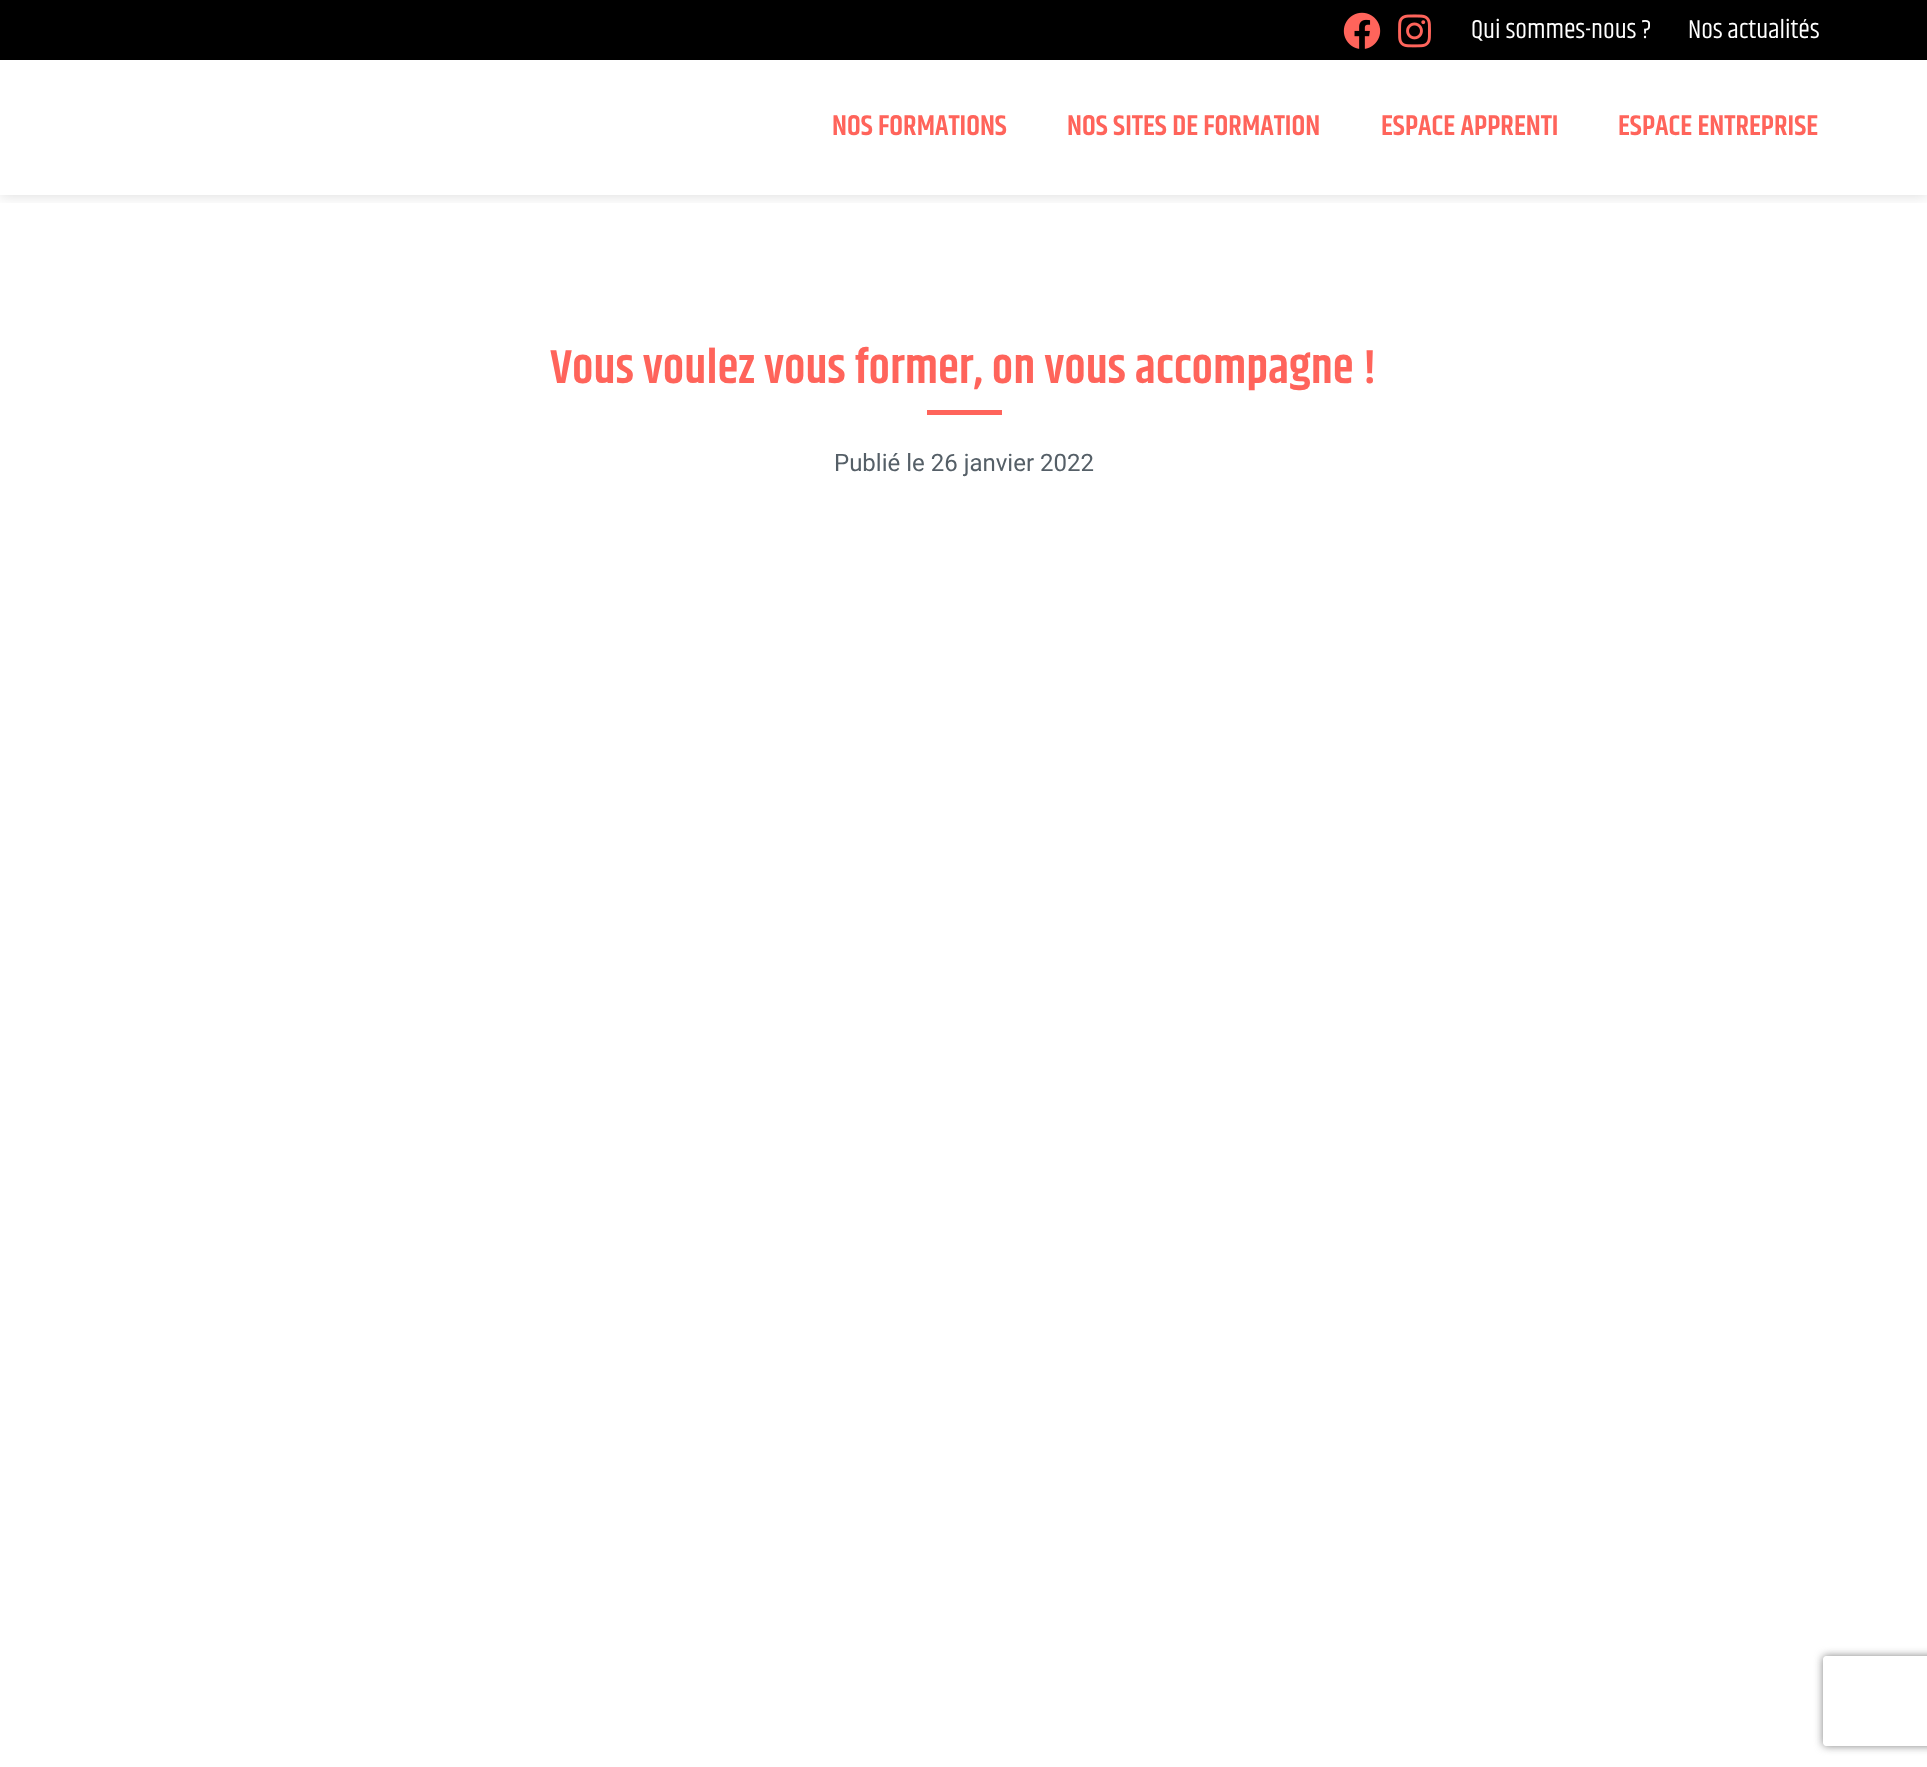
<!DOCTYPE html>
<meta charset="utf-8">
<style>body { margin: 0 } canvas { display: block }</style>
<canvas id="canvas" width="1927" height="1767"></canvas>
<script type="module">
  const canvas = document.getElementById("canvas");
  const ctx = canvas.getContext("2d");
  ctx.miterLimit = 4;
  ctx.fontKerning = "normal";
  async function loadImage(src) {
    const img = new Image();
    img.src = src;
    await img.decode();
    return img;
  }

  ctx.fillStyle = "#ffffff";
  ctx.fillRect(0, 0, 1927, 1767);
  ctx.save();
  ctx.beginPath();
  ctx.rect(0, 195, 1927, 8);
  ctx.clip();
  ctx.fillStyle = "rgba(0, 0, 0, 0.15)";
  ctx.filter = "blur(7.5px)";
  ctx.beginPath();
  ctx.rect(0, 60, 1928, 135);
  ctx.fill();
  ctx.filter = "none";
  ctx.restore();
  ctx.fillStyle = "#000000";
  ctx.fillRect(0, 0, 1927, 60);
  ctx.drawImage(await loadImage("img1.png"), 1343, 12, 38, 37);
  ctx.drawImage(await loadImage("img2.png"), 1398, 14, 33, 34);
  ctx.font = "26.5px Khand";
  ctx.fillStyle = "#ffffff";
  ctx.fillText("Qui sommes-nous ?", 1471, 38);
  ctx.fillText("Nos actualités", 1688, 38);
  ctx.font = "600 28.75px Khand";
  ctx.fillStyle = "#ff645b";
  ctx.fillText("NOS FORMATIONS", 832, 135);
  ctx.fillText("NOS SITES DE FORMATION", 1067, 135);
  ctx.fillText("ESPACE APPRENTI", 1381, 135);
  ctx.fillText("ESPACE ENTREPRISE", 1618, 135);
  ctx.font = "600 48px Khand";
  ctx.fillText("Vous voulez vous former, on vous accompagne !", 550, 383);
  ctx.fillRect(927, 410, 75, 5);
  ctx.font = "24px Roboto";
  ctx.fillStyle = "#555f67";
  ctx.fillText("Publié le 26 janvier 2022", 834, 471);
  ctx.save();
  ctx.beginPath();
  ctx.moveTo(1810, 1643);
  ctx.lineTo(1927, 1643);
  ctx.lineTo(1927, 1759);
  ctx.lineTo(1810, 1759);
  ctx.closePath();
  ctx.moveTo(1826, 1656);
  ctx.lineTo(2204, 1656);
  ctx.bezierCurveTo(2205.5, 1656, 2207, 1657.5, 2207, 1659);
  ctx.lineTo(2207, 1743);
  ctx.bezierCurveTo(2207, 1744.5, 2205.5, 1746, 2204, 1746);
  ctx.lineTo(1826, 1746);
  ctx.bezierCurveTo(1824.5, 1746, 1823, 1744.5, 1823, 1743);
  ctx.lineTo(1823, 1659);
  ctx.bezierCurveTo(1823, 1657.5, 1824.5, 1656, 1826, 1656);
  ctx.closePath();
  ctx.clip("evenodd");
  ctx.fillStyle = "#808080";
  ctx.filter = "blur(4px)";
  ctx.beginPath();
  ctx.roundRect(1823, 1656, 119, 90, 3);
  ctx.fill();
  ctx.filter = "none";
  ctx.restore();
</script>
